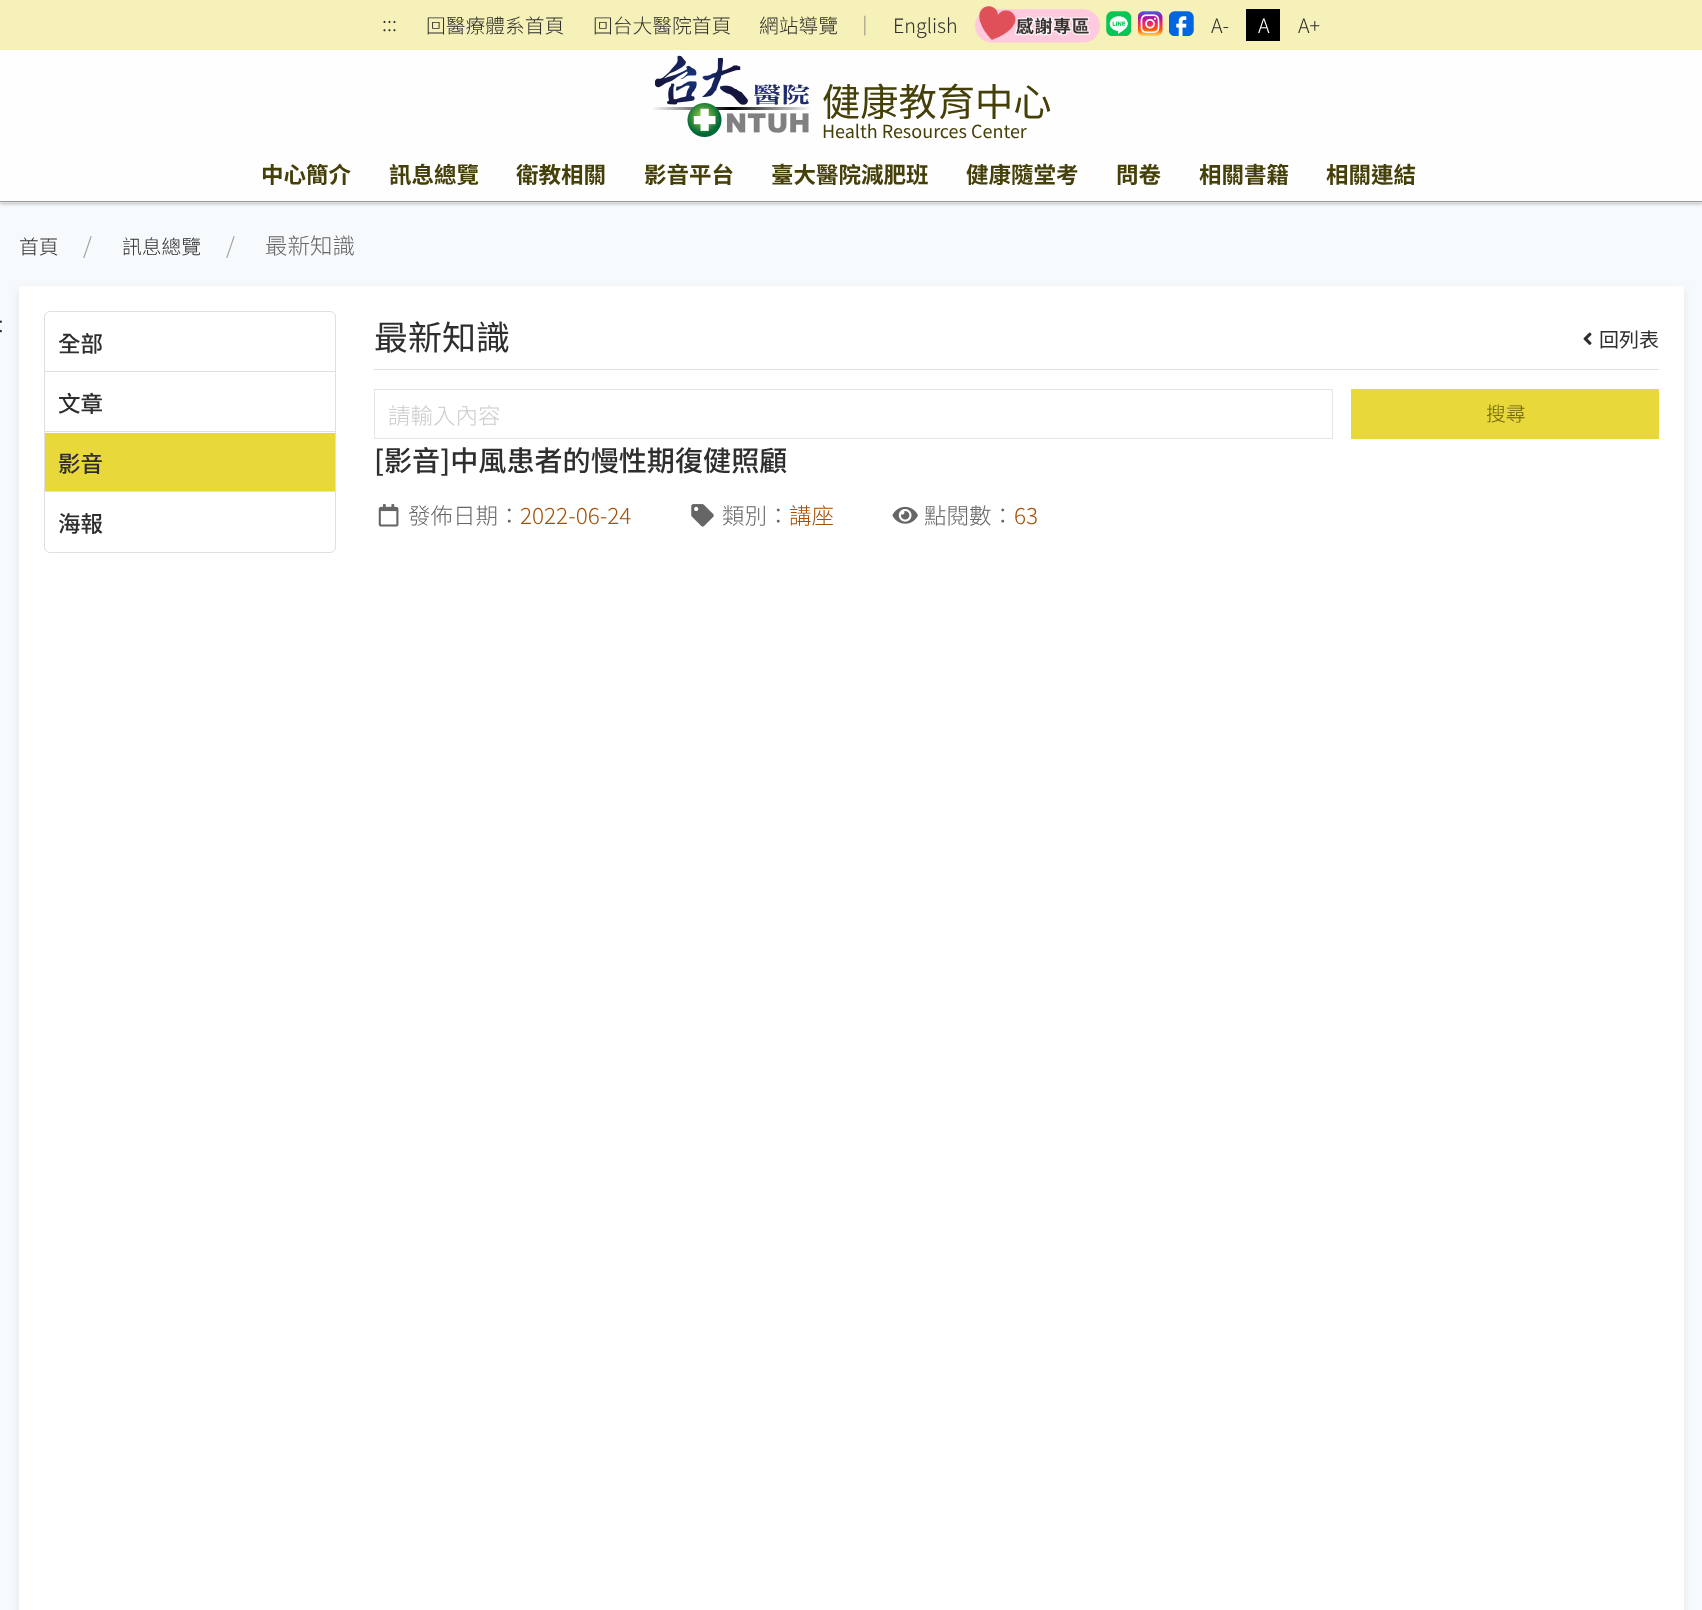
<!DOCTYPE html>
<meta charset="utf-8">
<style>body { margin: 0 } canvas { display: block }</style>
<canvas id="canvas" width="1702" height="1610"></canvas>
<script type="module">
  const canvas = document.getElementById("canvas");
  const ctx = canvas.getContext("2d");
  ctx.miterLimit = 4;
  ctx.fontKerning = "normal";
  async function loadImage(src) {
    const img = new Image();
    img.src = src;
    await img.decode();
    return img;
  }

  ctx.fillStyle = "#f7fafc";
  ctx.fillRect(0, 0, 1702, 1610);
  ctx.save();
  ctx.beginPath();
  ctx.moveTo(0, 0);
  ctx.lineTo(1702, 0);
  ctx.lineTo(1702, 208);
  ctx.lineTo(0, 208);
  ctx.closePath();
  ctx.moveTo(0, 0);
  ctx.lineTo(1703, 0);
  ctx.lineTo(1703, 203);
  ctx.lineTo(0, 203);
  ctx.closePath();
  ctx.clip("evenodd");
  ctx.fillStyle = "rgba(0, 0, 0, 0.06)";
  ctx.filter = "blur(1px)";
  ctx.beginPath();
  ctx.rect(0, 1, 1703, 203);
  ctx.fill();
  ctx.filter = "none";
  ctx.restore();
  ctx.save();
  ctx.beginPath();
  ctx.moveTo(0, 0);
  ctx.lineTo(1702, 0);
  ctx.lineTo(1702, 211);
  ctx.lineTo(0, 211);
  ctx.closePath();
  ctx.moveTo(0, 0);
  ctx.lineTo(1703, 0);
  ctx.lineTo(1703, 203);
  ctx.lineTo(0, 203);
  ctx.closePath();
  ctx.clip("evenodd");
  ctx.fillStyle = "rgba(0, 0, 0, 0.1)";
  ctx.filter = "blur(2px)";
  ctx.beginPath();
  ctx.rect(0, 1, 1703, 203);
  ctx.fill();
  ctx.filter = "none";
  ctx.restore();
  ctx.fillStyle = "rgba(0, 0, 0, 0.06)";
  ctx.filter = "blur(1px)";
  ctx.beginPath();
  ctx.rect(0, 51, 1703, 152);
  ctx.fill();
  ctx.filter = "none";
  ctx.fillStyle = "rgba(0, 0, 0, 0.1)";
  ctx.filter = "blur(2px)";
  ctx.beginPath();
  ctx.rect(0, 51, 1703, 152);
  ctx.fill();
  ctx.filter = "none";
  ctx.fillStyle = "rgba(246, 239, 172, 0.85)";
  ctx.fillRect(0, 0, 1702, 50);
  ctx.font = "300 19.75px Noto Sans TC";
  ctx.fillStyle = "#2e2e2e";
  ctx.fillText(":::", 382, 31);
  ctx.fillText("回醫療體系首頁", 426, 33);
  ctx.fillText("回台大醫院首頁", 593, 33);
  ctx.fillText("網站導覽", 759, 33);
  ctx.fillStyle = "#757575";
  ctx.fillText("｜", 855, 33);
  ctx.fillStyle = "#2e2e2e";
  ctx.fillText("English", 893, 33);
  ctx.drawImage(await loadImage("img1.png"), 975, 6, 125, 37);
  ctx.drawImage(await loadImage("img2.png"), 1106, 11, 25, 25);
  ctx.drawImage(await loadImage("img3.png"), 1138, 11, 25, 25);
  ctx.drawImage(await loadImage("img4.png"), 1169, 11, 25, 25);
  ctx.fillText("A-", 1211, 33);
  ctx.fillStyle = "#000000";
  ctx.fillRect(1246, 9, 34, 32);
  ctx.fillStyle = "#ffffff";
  ctx.fillText("A", 1258, 33);
  ctx.fillStyle = "#2e2e2e";
  ctx.fillText("A+", 1298, 33);
  ctx.fillStyle = "#fefeff";
  ctx.fillRect(0, 50, 1702, 151);
  ctx.drawImage(await loadImage("img5.png"), 653, 55, 157, 82);
  ctx.font = "38.25px Noto Sans TC";
  ctx.fillStyle = "#453f08";
  ctx.fillText("健康教育中心", 822, 116);
  ctx.font = "18px Noto Sans TC";
  ctx.fillText("Health Resources Center", 822, 138);
  ctx.font = "bold 22.5px Noto Sans TC";
  ctx.fillText("中心簡介", 261, 183);
  ctx.fillText("訊息總覽", 389, 183);
  ctx.fillText("衛教相關", 516, 183);
  ctx.fillText("影音平台", 644, 183);
  ctx.fillText("臺大醫院減肥班", 771, 183);
  ctx.fillText("健康隨堂考", 966, 183);
  ctx.fillText("問卷", 1116, 183);
  ctx.fillText("相關書籍", 1199, 183);
  ctx.fillText("相關連結", 1326, 183);
  ctx.fillStyle = "rgba(0, 0, 0, 0.3)";
  ctx.fillRect(0, 201, 1702, 1);
  ctx.font = "300 19.75px Noto Sans TC";
  ctx.fillStyle = "#2e2e2e";
  ctx.fillText("首頁", 19, 254);
  ctx.font = "300 22.5px Noto Sans TC";
  ctx.fillStyle = "#999999";
  ctx.fillText("/", 83, 254);
  ctx.font = "300 19.75px Noto Sans TC";
  ctx.fillStyle = "#2e2e2e";
  ctx.fillText("訊息總覽", 122, 254);
  ctx.font = "300 22.5px Noto Sans TC";
  ctx.fillStyle = "#999999";
  ctx.fillText("/", 226, 254);
  ctx.fillStyle = "#666666";
  ctx.fillText("最新知識", 265, 254);
  ctx.fillStyle = "#2e2e2e";
  ctx.fillText(":", -2, 332);
  ctx.fillStyle = "rgba(0, 0, 0, 0.08)";
  ctx.filter = "blur(5px)";
  ctx.beginPath();
  ctx.rect(19, 289, 1665, 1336);
  ctx.fill();
  ctx.filter = "none";
  ctx.fillStyle = "#ffffff";
  ctx.fillRect(19, 286, 1665, 1324);
  ctx.beginPath();
  ctx.roundRect(44.5, 311.5, 291, 61, [5.5, 5.5, 0, 0]);
  ctx.strokeStyle = "#e0e0e0";
  ctx.stroke();
  ctx.font = "500 22.5px Noto Sans TC";
  ctx.fillStyle = "#2e2e2e";
  ctx.fillText("全部", 58, 352);
  ctx.fillStyle = "#ffffff";
  ctx.fillRect(45, 372, 290, 1);
  ctx.strokeRect(44.5, 371.5, 291, 61);
  ctx.fillStyle = "#2e2e2e";
  ctx.fillText("文章", 58, 412);
  ctx.fillStyle = "#ffffff";
  ctx.fillRect(45, 432, 290, 1);
  ctx.strokeRect(44.5, 431.5, 291, 61);
  ctx.fillStyle = "#e9d839";
  ctx.fillRect(45, 433, 290, 58);
  ctx.fillStyle = "#2e2e2e";
  ctx.fillText("影音", 58, 472);
  ctx.fillStyle = "#ffffff";
  ctx.beginPath();
  ctx.roundRect(44.5, 491.5, 291, 61, [0, 0, 5.5, 5.5]);
  ctx.fill();
  ctx.stroke();
  ctx.fillStyle = "#2e2e2e";
  ctx.fillText("海報", 58, 532);
  ctx.fillStyle = "#e0e0e0";
  ctx.fillRect(374, 369, 1285, 1);
  ctx.font = "34px Noto Sans TC";
  ctx.fillStyle = "#2e2e2e";
  ctx.fillText("最新知識", 374, 350);
  ctx.drawImage(await loadImage("img6.png"), 1583, 332, 9, 13);
  ctx.font = "20px Noto Sans TC";
  ctx.fillText("回列表", 1599, 347);
  ctx.strokeStyle = "#e5e5e5";
  ctx.strokeRect(374.5, 389.5, 958, 49);
  ctx.font = "300 22.5px Noto Sans TC";
  ctx.fillStyle = "#cccccc";
  ctx.fillText("請輸入內容", 388, 424);
  ctx.fillStyle = "#e9d839";
  ctx.fillRect(1351, 389, 308, 50);
  ctx.font = "300 19.75px Noto Sans TC";
  ctx.fillStyle = "#655c0b";
  ctx.fillText("搜尋", 1486, 421);
  ctx.font = "500 28.1px Noto Sans TC";
  ctx.fillStyle = "#2e2e2e";
  ctx.fillText("[影音]中風患者的慢性期復健照顧", 374, 471);
  ctx.drawImage(await loadImage("img7.png"), 378, 504, 21, 23);
  ctx.font = "300 22.5px Noto Sans TC";
  ctx.fillStyle = "#666666";
  ctx.fillText("發佈日期：", 408, 524);
  ctx.fillStyle = "#a45009";
  ctx.fillText("2022-06-24", 520, 524);
  ctx.drawImage(await loadImage("img8.png"), 691, 504, 23, 23);
  ctx.fillStyle = "#666666";
  ctx.fillText("類別：", 722, 524);
  ctx.fillStyle = "#a45009";
  ctx.fillText("講座", 789, 524);
  ctx.drawImage(await loadImage("img9.png"), 892, 506, 26, 18);
  ctx.fillStyle = "#666666";
  ctx.fillText("點閱數：", 924, 524);
  ctx.fillStyle = "#a45009";
  ctx.fillText("63", 1014, 524);
</script>
